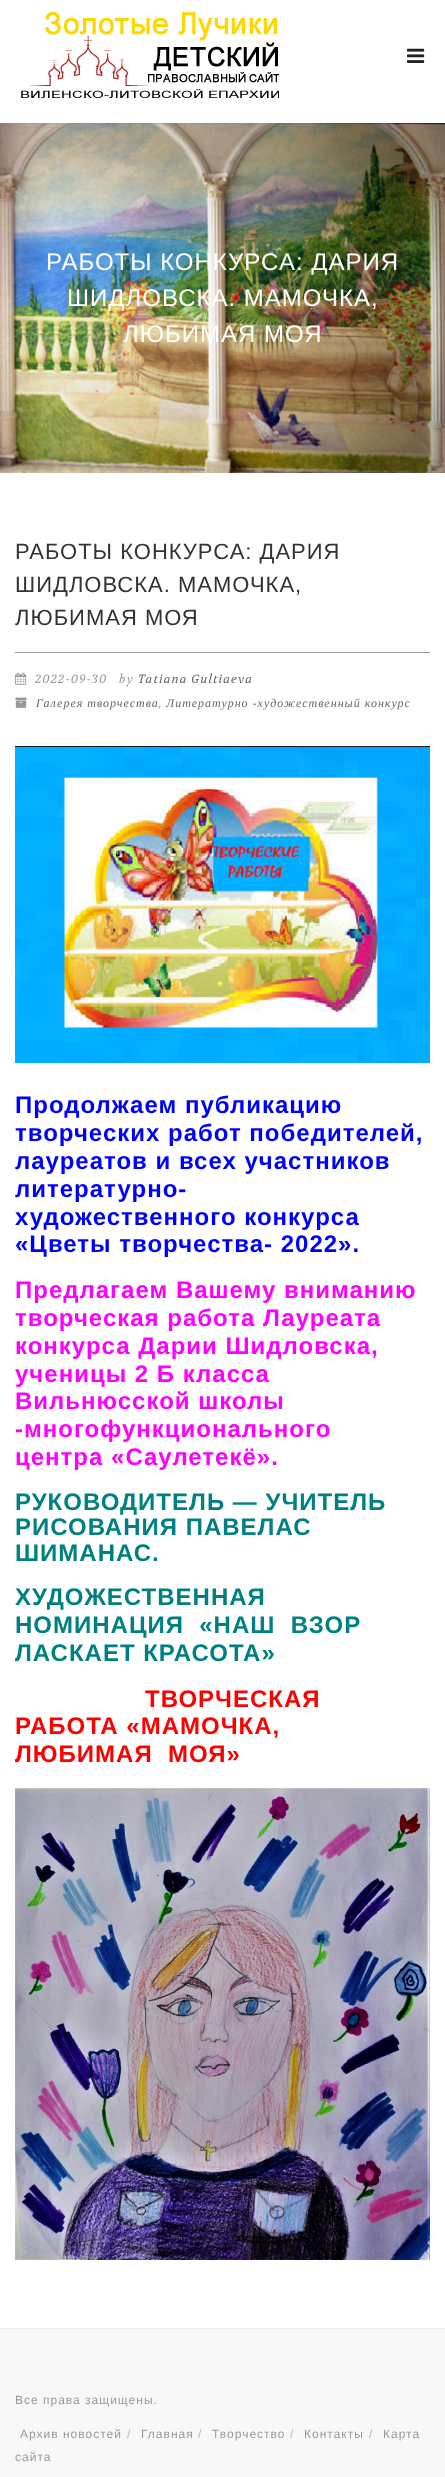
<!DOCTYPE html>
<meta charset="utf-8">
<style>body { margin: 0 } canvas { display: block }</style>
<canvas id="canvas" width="445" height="2477"></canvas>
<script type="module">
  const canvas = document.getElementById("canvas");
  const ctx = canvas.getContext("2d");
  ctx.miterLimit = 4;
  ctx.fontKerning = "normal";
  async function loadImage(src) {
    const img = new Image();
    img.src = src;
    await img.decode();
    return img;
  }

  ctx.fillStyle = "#ffffff";
  ctx.fillRect(0, 0, 445, 2477);
  ctx.drawImage(await loadImage("img3.png"), 0, 123, 445, 350);
  ctx.save();
  ctx.beginPath();
  ctx.rect(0, 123, 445, 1);
  ctx.clip();
  ctx.fillStyle = "rgba(0, 0, 0, 0.1)";
  ctx.filter = "blur(0.5px)";
  ctx.beginPath();
  ctx.rect(0, -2, 445, 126);
  ctx.fill();
  ctx.filter = "none";
  ctx.restore();
  ctx.drawImage(await loadImage("img1.png"), 21, 12, 258, 86);
  ctx.drawImage(await loadImage("img2.png"), 407, 48, 18, 15);
  ctx.letterSpacing = "1px";
  ctx.font = "24px Liberation Sans";
  ctx.fillText("РАБОТЫ КОНКУРСА: ДАРИЯ", 46, 270);
  ctx.fillText("ШИДЛОВСКА. МАМОЧКА,", 67, 306);
  ctx.fillText("ЛЮБИМАЯ МОЯ", 123, 342);
  ctx.fillStyle = "#999999";
  ctx.fillRect(15, 652, 415, 1);
  ctx.font = "22px Liberation Sans";
  ctx.fillStyle = "#333333";
  ctx.fillText("РАБОТЫ КОНКУРСА: ДАРИЯ", 15, 559);
  ctx.fillText("ШИДЛОВСКА. МАМОЧКА,", 15, 592);
  ctx.fillText("ЛЮБИМАЯ МОЯ", 15, 625);
  ctx.drawImage(await loadImage("img4.png"), 15, 672, 12, 13);
  ctx.font = "italic 12px Volkhov";
  ctx.fillStyle = "#999999";
  ctx.fillText("2022-09-30", 35, 683);
  ctx.fillText("by", 119, 683);
  ctx.fillStyle = "#666666";
  ctx.fillText("Tatiana Gultiaeva", 138, 683);
  ctx.drawImage(await loadImage("img5.png"), 15, 697, 12, 11);
  ctx.font = "italic 12px Liberation Serif";
  ctx.fillText("Галерея творчества", 36, 707);
  ctx.font = "italic 12px Volkhov";
  ctx.fillStyle = "#999999";
  ctx.fillText(",", 159, 707);
  ctx.font = "italic 12px Liberation Serif";
  ctx.fillStyle = "#666666";
  ctx.fillText("Литературно -художественный конкурс", 166, 707);
  ctx.drawImage(await loadImage("img6.png"), 15, 746, 415, 317);
  ctx.font = "bold 24px Liberation Sans";
  ctx.fillStyle = "#0000ff";
  ctx.fillText("Продолжаем публикацию", 15, 1113);
  ctx.fillText("творческих работ победителей,", 15, 1141);
  ctx.fillText("лауреатов и всех участников", 15, 1169);
  ctx.fillText("литературно-", 15, 1197);
  ctx.fillText("художественного конкурса", 15, 1225);
  ctx.fillText("«Цветы творчества- 2022».", 15, 1252);
  ctx.fillStyle = "#ff00ff";
  ctx.fillText("Предлагаем Вашему вниманию", 15, 1298);
  ctx.fillText("творческая работа Лауреата", 15, 1326);
  ctx.fillText("конкурса Дарии Шидловска,", 15, 1354);
  ctx.fillText("ученицы 2 Б класса", 15, 1382);
  ctx.fillText("Вильнюсской школы", 15, 1409);
  ctx.fillText("-многофункционального", 15, 1437);
  ctx.fillText("центра «Саулетекё».", 15, 1465);
  ctx.fillStyle = "#008080";
  ctx.fillText("РУКОВОДИТЕЛЬ — УЧИТЕЛЬ", 15, 1510);
  ctx.fillText("РИСОВАНИЯ ПАВЕЛАС", 15, 1535);
  ctx.fillText("ШИМАНАС.", 15, 1561);
  ctx.fillText("ХУДОЖЕСТВЕННАЯ", 15, 1605);
  ctx.fillText("НОМИНАЦИЯ  «НАШ  ВЗОР", 15, 1633);
  ctx.fillText("ЛАСКАЕТ КРАСОТА»", 15, 1661);
  ctx.fillStyle = "#ff0000";
  ctx.fillText("ТВОРЧЕСКАЯ", 145, 1707);
  ctx.fillText("РАБОТА «МАМОЧКА,", 15, 1734);
  ctx.fillText("ЛЮБИМАЯ  МОЯ»", 15, 1762);
  ctx.drawImage(await loadImage("img7.png"), 15, 1788, 415, 472);
  ctx.fillStyle = "#f8f8f8";
  ctx.fillRect(0, 2329, 445, 148);
  ctx.fillStyle = "#efefef";
  ctx.fillRect(0, 2328, 445, 1);
  ctx.font = "12px Liberation Sans";
  ctx.fillStyle = "#999999";
  ctx.fillText("Все права защищены.", 15, 2404);
  ctx.fillText("Архив новостей", 20, 2438);
  ctx.fillStyle = "#b6b6b6";
  ctx.fillText("/", 127, 2438);
  ctx.fillStyle = "#999999";
  ctx.fillText("Главная", 141, 2438);
  ctx.fillStyle = "#b6b6b6";
  ctx.fillText("/", 198, 2438);
  ctx.fillStyle = "#999999";
  ctx.fillText("Творчество", 212, 2438);
  ctx.fillStyle = "#b6b6b6";
  ctx.fillText("/", 290, 2438);
  ctx.fillStyle = "#999999";
  ctx.fillText("Контакты", 304, 2438);
  ctx.fillStyle = "#b6b6b6";
  ctx.fillText("/", 369, 2438);
  ctx.fillStyle = "#999999";
  ctx.fillText("Карта", 383, 2438);
  ctx.fillText("сайта", 15, 2461);
</script>
